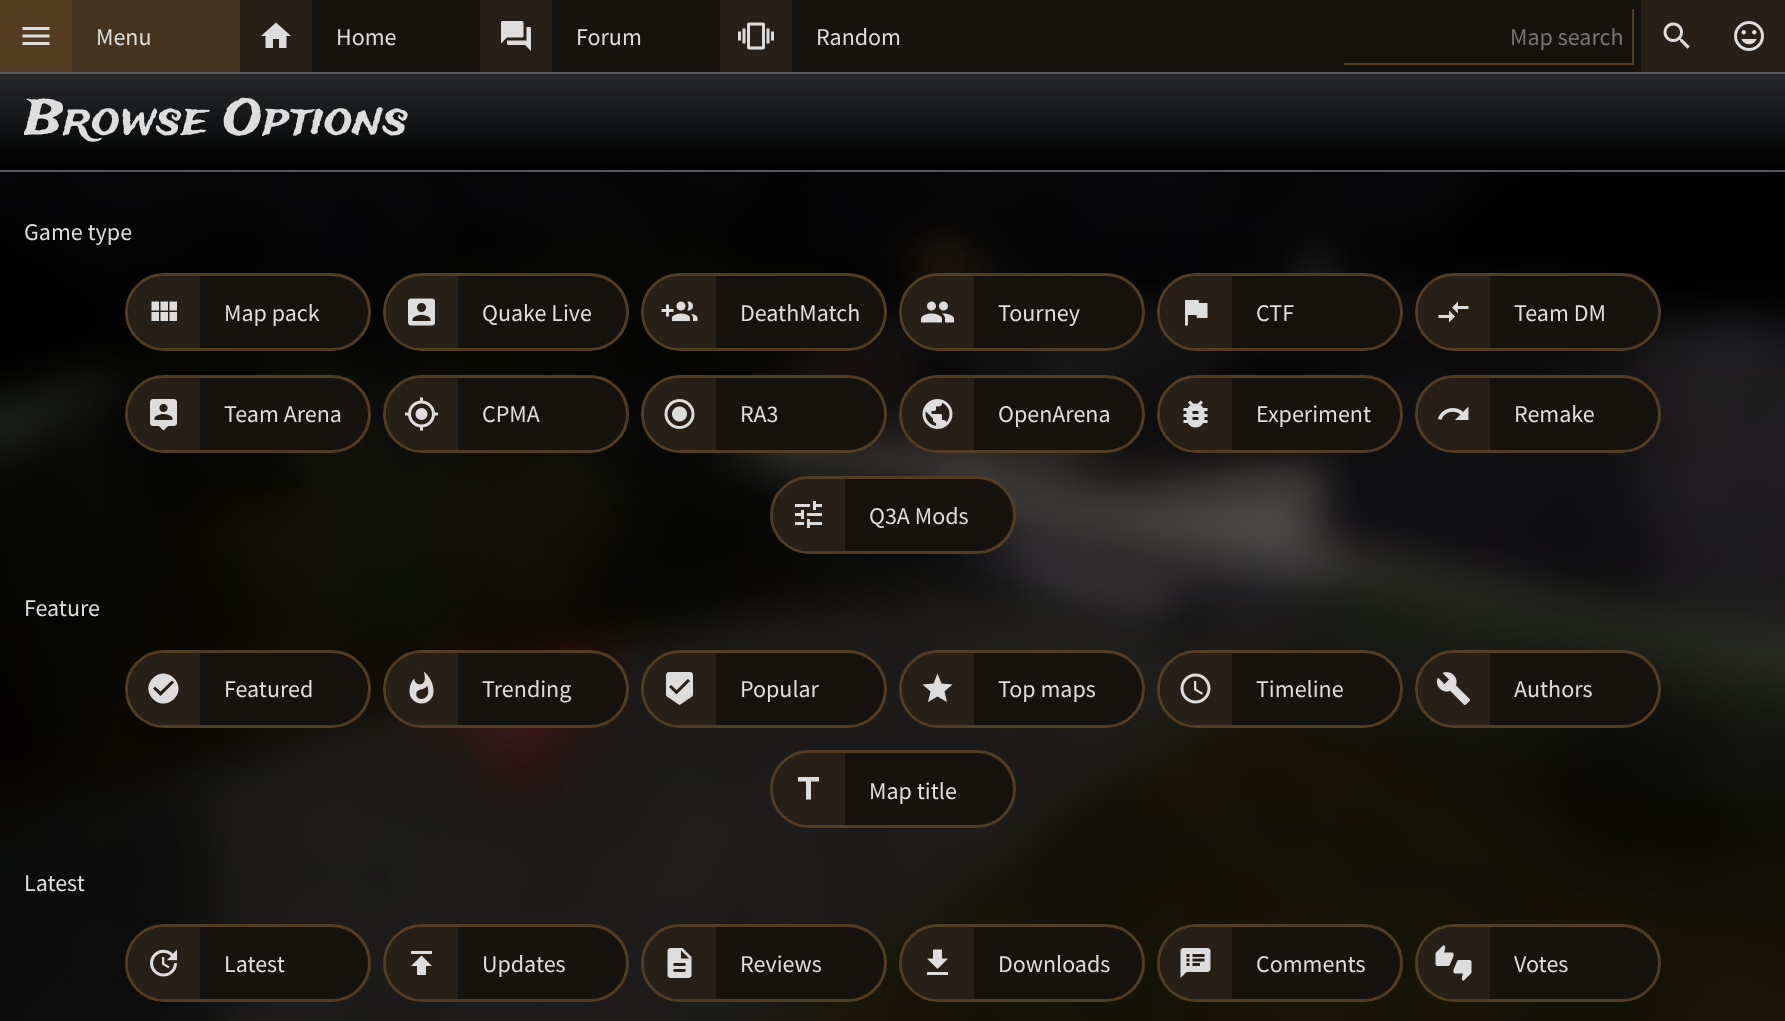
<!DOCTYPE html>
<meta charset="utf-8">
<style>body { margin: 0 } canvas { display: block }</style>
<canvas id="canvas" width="1785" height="1021"></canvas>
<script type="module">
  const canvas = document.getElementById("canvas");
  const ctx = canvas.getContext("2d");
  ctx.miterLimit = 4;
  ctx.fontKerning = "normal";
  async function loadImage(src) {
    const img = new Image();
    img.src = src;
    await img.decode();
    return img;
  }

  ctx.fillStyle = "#ffffff";
  ctx.fillRect(0, 0, 1785, 1021);
  ctx.fillStyle = "#16130f";
  ctx.fillRect(312, 0, 1329, 72);
  ctx.fillStyle = "#543c22";
  ctx.fillRect(0, 0, 72, 72);
  ctx.drawImage(await loadImage("img1.png"), 22, 27, 28, 18);
  ctx.fillStyle = "#47341f";
  ctx.fillRect(72, 0, 168, 72);
  ctx.font = "24px Source Sans Pro";
  ctx.fillStyle = "#dddddd";
  ctx.fillText("Menu", 96, 45);
  ctx.fillStyle = "#282016";
  ctx.fillRect(240, 0, 72, 72);
  ctx.drawImage(await loadImage("img2.png"), 261, 22, 30, 26);
  ctx.fillStyle = "#dddddd";
  ctx.fillText("Home", 336, 45);
  ctx.fillStyle = "#282016";
  ctx.fillRect(480, 0, 72, 72);
  ctx.drawImage(await loadImage("img3.png"), 501, 21, 30, 30);
  ctx.fillStyle = "#dddddd";
  ctx.fillText("Forum", 576, 45);
  ctx.fillStyle = "#282016";
  ctx.fillRect(720, 0, 72, 72);
  ctx.drawImage(await loadImage("img4.png"), 738, 22, 36, 28);
  ctx.fillStyle = "#dddddd";
  ctx.fillText("Random", 816, 45);
  ctx.fillStyle = "#543c22";
  ctx.fillRect(1632, 9, 2, 56);
  ctx.fillRect(1344, 63, 290, 2);
  ctx.fillStyle = "#757575";
  ctx.fillText("Map search", 1510, 45);
  ctx.fillStyle = "#282016";
  ctx.fillRect(1641, 0, 144, 72);
  ctx.drawImage(await loadImage("img5.png"), 1663, 22, 27, 27);
  ctx.drawImage(await loadImage("img6.png"), 1734, 21, 30, 30);
  ctx.drawImage(await loadImage("img7.png"), 0, 74, 1785, 96);
  ctx.fillStyle = "#56585d";
  ctx.fillRect(0, 72, 1785, 2);
  ctx.fillRect(0, 170, 1785, 2);
  ctx.save();
  ctx.beginPath();
  ctx.rect(24, 74, 1761, 96);
  ctx.clip();
  ctx.font = "48px Trade Winds";
  ctx.fillStyle = "#dddddd";
  ctx.fillText("Browse Options", 24, 134);
  ctx.restore();
  ctx.drawImage(await loadImage("img8.png"), 0, 172, 1785, 849);
  ctx.fillStyle = "#dddddd";
  ctx.fillText("Game type", 24, 240);
  ctx.fillStyle = "#16130f";
  ctx.beginPath();
  ctx.roundRect(126.5, 274.5, 243, 75, 37.5);
  ctx.fill();
  ctx.strokeStyle = "#543c22";
  ctx.lineWidth = 3;
  ctx.stroke();
  ctx.fillStyle = "#282016";
  ctx.beginPath();
  ctx.roundRect(128, 276, 72, 72, [36, 0, 0, 36]);
  ctx.fill();
  ctx.drawImage(await loadImage("img9.png"), 151, 301, 26, 20);
  ctx.fillStyle = "#dddddd";
  ctx.fillText("Map pack", 224, 321);
  ctx.fillStyle = "#16130f";
  ctx.beginPath();
  ctx.roundRect(384.5, 274.5, 243, 75, 37.5);
  ctx.fill();
  ctx.stroke();
  ctx.fillStyle = "#282016";
  ctx.beginPath();
  ctx.roundRect(386, 276, 72, 72, [36, 0, 0, 36]);
  ctx.fill();
  ctx.drawImage(await loadImage("img10.png"), 408, 298, 27, 28);
  ctx.fillStyle = "#dddddd";
  ctx.fillText("Quake Live", 482, 321);
  ctx.fillStyle = "#16130f";
  ctx.beginPath();
  ctx.roundRect(642.5, 274.5, 243, 75, 37.5);
  ctx.fill();
  ctx.stroke();
  ctx.fillStyle = "#282016";
  ctx.beginPath();
  ctx.roundRect(644, 276, 72, 72, [36, 0, 0, 36]);
  ctx.fill();
  ctx.drawImage(await loadImage("img11.png"), 661, 301, 37, 20);
  ctx.fillStyle = "#dddddd";
  ctx.fillText("DeathMatch", 740, 321);
  ctx.fillStyle = "#16130f";
  ctx.beginPath();
  ctx.roundRect(900.5, 274.5, 243, 75, 37.5);
  ctx.fill();
  ctx.stroke();
  ctx.fillStyle = "#282016";
  ctx.beginPath();
  ctx.roundRect(902, 276, 72, 72, [36, 0, 0, 36]);
  ctx.fill();
  ctx.drawImage(await loadImage("img12.png"), 920, 301, 35, 22);
  ctx.fillStyle = "#dddddd";
  ctx.fillText("Tourney", 998, 321);
  ctx.fillStyle = "#16130f";
  ctx.beginPath();
  ctx.roundRect(1158.5, 274.5, 243, 75, 37.5);
  ctx.fill();
  ctx.stroke();
  ctx.fillStyle = "#282016";
  ctx.beginPath();
  ctx.roundRect(1160, 276, 72, 72, [36, 0, 0, 36]);
  ctx.fill();
  ctx.drawImage(await loadImage("img13.png"), 1185, 300, 23, 26);
  ctx.fillStyle = "#dddddd";
  ctx.fillText("CTF", 1256, 321);
  ctx.fillStyle = "#16130f";
  ctx.beginPath();
  ctx.roundRect(1416.5, 274.5, 243, 75, 37.5);
  ctx.fill();
  ctx.stroke();
  ctx.fillStyle = "#282016";
  ctx.beginPath();
  ctx.roundRect(1418, 276, 72, 72, [36, 0, 0, 36]);
  ctx.fill();
  ctx.drawImage(await loadImage("img14.png"), 1438, 301, 31, 22);
  ctx.fillStyle = "#dddddd";
  ctx.fillText("Team DM", 1514, 321);
  ctx.fillStyle = "#16130f";
  ctx.beginPath();
  ctx.roundRect(126.5, 376.5, 243, 75, 37.5);
  ctx.fill();
  ctx.stroke();
  ctx.fillStyle = "#282016";
  ctx.beginPath();
  ctx.roundRect(128, 378, 72, 72, [36, 0, 0, 36]);
  ctx.fill();
  ctx.drawImage(await loadImage("img15.png"), 150, 399, 27, 32);
  ctx.fillStyle = "#dddddd";
  ctx.fillText("Team Arena", 224, 422);
  ctx.fillStyle = "#16130f";
  ctx.beginPath();
  ctx.roundRect(384.5, 376.5, 243, 75, 37.5);
  ctx.fill();
  ctx.stroke();
  ctx.fillStyle = "#282016";
  ctx.beginPath();
  ctx.roundRect(386, 378, 72, 72, [36, 0, 0, 36]);
  ctx.fill();
  ctx.drawImage(await loadImage("img16.png"), 404, 397, 35, 34);
  ctx.fillStyle = "#dddddd";
  ctx.fillText("CPMA", 482, 422);
  ctx.fillStyle = "#16130f";
  ctx.beginPath();
  ctx.roundRect(642.5, 376.5, 243, 75, 37.5);
  ctx.fill();
  ctx.stroke();
  ctx.fillStyle = "#282016";
  ctx.beginPath();
  ctx.roundRect(644, 378, 72, 72, [36, 0, 0, 36]);
  ctx.fill();
  ctx.drawImage(await loadImage("img17.png"), 664, 399, 31, 30);
  ctx.fillStyle = "#dddddd";
  ctx.fillText("RA3", 740, 422);
  ctx.fillStyle = "#16130f";
  ctx.beginPath();
  ctx.roundRect(900.5, 376.5, 243, 75, 37.5);
  ctx.fill();
  ctx.stroke();
  ctx.fillStyle = "#282016";
  ctx.beginPath();
  ctx.roundRect(902, 378, 72, 72, [36, 0, 0, 36]);
  ctx.fill();
  ctx.drawImage(await loadImage("img18.png"), 922, 399, 31, 30);
  ctx.fillStyle = "#dddddd";
  ctx.fillText("OpenArena", 998, 422);
  ctx.fillStyle = "#16130f";
  ctx.beginPath();
  ctx.roundRect(1158.5, 376.5, 243, 75, 37.5);
  ctx.fill();
  ctx.stroke();
  ctx.fillStyle = "#282016";
  ctx.beginPath();
  ctx.roundRect(1160, 378, 72, 72, [36, 0, 0, 36]);
  ctx.fill();
  ctx.drawImage(await loadImage("img19.png"), 1183, 400, 25, 28);
  ctx.fillStyle = "#dddddd";
  ctx.fillText("Experiment", 1256, 422);
  ctx.fillStyle = "#16130f";
  ctx.beginPath();
  ctx.roundRect(1416.5, 376.5, 243, 75, 37.5);
  ctx.fill();
  ctx.stroke();
  ctx.fillStyle = "#282016";
  ctx.beginPath();
  ctx.roundRect(1418, 378, 72, 72, [36, 0, 0, 36]);
  ctx.fill();
  ctx.drawImage(await loadImage("img20.png"), 1437, 406, 32, 14);
  ctx.fillStyle = "#dddddd";
  ctx.fillText("Remake", 1514, 422);
  ctx.fillStyle = "#16130f";
  ctx.beginPath();
  ctx.roundRect(771.5, 477.5, 243, 75, 37.5);
  ctx.fill();
  ctx.stroke();
  ctx.fillStyle = "#282016";
  ctx.beginPath();
  ctx.roundRect(773, 479, 72, 72, [36, 0, 0, 36]);
  ctx.fill();
  ctx.drawImage(await loadImage("img21.png"), 795, 501, 27, 27);
  ctx.fillStyle = "#dddddd";
  ctx.fillText("Q3A Mods", 869, 524);
  ctx.fillText("Feature", 24, 616);
  ctx.fillStyle = "#16130f";
  ctx.beginPath();
  ctx.roundRect(126.5, 651.5, 243, 75, 37.5);
  ctx.fill();
  ctx.stroke();
  ctx.fillStyle = "#282016";
  ctx.beginPath();
  ctx.roundRect(128, 653, 72, 72, [36, 0, 0, 36]);
  ctx.fill();
  ctx.fillStyle = "#dddddd";
  ctx.beginPath();
  ctx.moveTo(160.5, 696);
  ctx.lineTo(174, 682.5);
  ctx.lineTo(172, 680.5);
  ctx.lineTo(160.5, 691.5);
  ctx.lineTo(155, 686.5);
  ctx.lineTo(153, 688.5);
  ctx.closePath();
  ctx.moveTo(153, 678);
  ctx.bezierCurveTo(167, 664, 188, 685, 174, 699);
  ctx.bezierCurveTo(160, 713, 139, 692, 153, 678);
  ctx.closePath();
  ctx.fill();
  ctx.fillText("Featured", 224, 697);
  ctx.fillStyle = "#16130f";
  ctx.beginPath();
  ctx.roundRect(384.5, 651.5, 243, 75, 37.5);
  ctx.fill();
  ctx.stroke();
  ctx.fillStyle = "#282016";
  ctx.beginPath();
  ctx.roundRect(386, 653, 72, 72, [36, 0, 0, 36]);
  ctx.fill();
  ctx.drawImage(await loadImage("img22.png"), 409, 671, 25, 33);
  ctx.fillStyle = "#dddddd";
  ctx.fillText("Trending", 482, 697);
  ctx.fillStyle = "#16130f";
  ctx.beginPath();
  ctx.roundRect(642.5, 651.5, 243, 75, 37.5);
  ctx.fill();
  ctx.stroke();
  ctx.fillStyle = "#282016";
  ctx.beginPath();
  ctx.roundRect(644, 653, 72, 72, [36, 0, 0, 36]);
  ctx.fill();
  ctx.drawImage(await loadImage("img23.png"), 666, 672, 27, 33);
  ctx.fillStyle = "#dddddd";
  ctx.fillText("Popular", 740, 697);
  ctx.fillStyle = "#16130f";
  ctx.beginPath();
  ctx.roundRect(900.5, 651.5, 243, 75, 37.5);
  ctx.fill();
  ctx.stroke();
  ctx.fillStyle = "#282016";
  ctx.beginPath();
  ctx.roundRect(902, 653, 72, 72, [36, 0, 0, 36]);
  ctx.fill();
  ctx.fillStyle = "#dddddd";
  ctx.beginPath();
  ctx.moveTo(937.5, 696.5);
  ctx.lineTo(928, 702);
  ctx.lineTo(930.5, 691.5);
  ctx.lineTo(922.5, 684.5);
  ctx.lineTo(933.5, 683.5);
  ctx.lineTo(937.5, 673.5);
  ctx.lineTo(941.5, 683.5);
  ctx.lineTo(952.5, 684.5);
  ctx.lineTo(944.5, 691.5);
  ctx.lineTo(947, 702);
  ctx.closePath();
  ctx.fill();
  ctx.fillText("Top maps", 998, 697);
  ctx.fillStyle = "#16130f";
  ctx.beginPath();
  ctx.roundRect(1158.5, 651.5, 243, 75, 37.5);
  ctx.fill();
  ctx.stroke();
  ctx.fillStyle = "#282016";
  ctx.beginPath();
  ctx.roundRect(1160, 653, 72, 72, [36, 0, 0, 36]);
  ctx.fill();
  ctx.drawImage(await loadImage("img24.png"), 1180, 673, 31, 31);
  ctx.fillStyle = "#dddddd";
  ctx.fillText("Timeline", 1256, 697);
  ctx.fillStyle = "#16130f";
  ctx.beginPath();
  ctx.roundRect(1416.5, 651.5, 243, 75, 37.5);
  ctx.fill();
  ctx.stroke();
  ctx.fillStyle = "#282016";
  ctx.beginPath();
  ctx.roundRect(1418, 653, 72, 72, [36, 0, 0, 36]);
  ctx.fill();
  ctx.drawImage(await loadImage("img25.png"), 1436, 672, 34, 33);
  ctx.fillStyle = "#dddddd";
  ctx.fillText("Authors", 1514, 697);
  ctx.fillStyle = "#16130f";
  ctx.beginPath();
  ctx.roundRect(771.5, 751.5, 243, 75, 37.5);
  ctx.fill();
  ctx.stroke();
  ctx.fillStyle = "#282016";
  ctx.beginPath();
  ctx.roundRect(773, 753, 72, 72, [36, 0, 0, 36]);
  ctx.fill();
  ctx.fillStyle = "#dddddd";
  ctx.beginPath();
  ctx.moveTo(798, 777);
  ctx.lineTo(819, 777);
  ctx.lineTo(819, 781.5);
  ctx.lineTo(811, 781.5);
  ctx.lineTo(811, 799.5);
  ctx.lineTo(806, 799.5);
  ctx.lineTo(806, 781.5);
  ctx.lineTo(798, 781.5);
  ctx.closePath();
  ctx.fill();
  ctx.fillText("Map title", 869, 799);
  ctx.fillText("Latest", 24, 891);
  ctx.fillStyle = "#16130f";
  ctx.beginPath();
  ctx.roundRect(126.5, 925.5, 243, 75, 37.5);
  ctx.fill();
  ctx.stroke();
  ctx.fillStyle = "#282016";
  ctx.beginPath();
  ctx.roundRect(128, 927, 72, 72, [36, 0, 0, 36]);
  ctx.fill();
  ctx.drawImage(await loadImage("img26.png"), 150, 949, 27, 28);
  ctx.fillStyle = "#dddddd";
  ctx.fillText("Latest", 224, 972);
  ctx.fillStyle = "#16130f";
  ctx.beginPath();
  ctx.roundRect(384.5, 925.5, 243, 75, 37.5);
  ctx.fill();
  ctx.stroke();
  ctx.fillStyle = "#282016";
  ctx.beginPath();
  ctx.roundRect(386, 927, 72, 72, [36, 0, 0, 36]);
  ctx.fill();
  ctx.drawImage(await loadImage("img27.png"), 411, 951, 21, 24);
  ctx.fillStyle = "#dddddd";
  ctx.fillText("Updates", 482, 972);
  ctx.fillStyle = "#16130f";
  ctx.beginPath();
  ctx.roundRect(642.5, 925.5, 243, 75, 37.5);
  ctx.fill();
  ctx.stroke();
  ctx.fillStyle = "#282016";
  ctx.beginPath();
  ctx.roundRect(644, 927, 72, 72, [36, 0, 0, 36]);
  ctx.fill();
  ctx.drawImage(await loadImage("img28.png"), 667, 948, 25, 30);
  ctx.fillStyle = "#dddddd";
  ctx.fillText("Reviews", 740, 972);
  ctx.fillStyle = "#16130f";
  ctx.beginPath();
  ctx.roundRect(900.5, 925.5, 243, 75, 37.5);
  ctx.fill();
  ctx.stroke();
  ctx.fillStyle = "#282016";
  ctx.beginPath();
  ctx.roundRect(902, 927, 72, 72, [36, 0, 0, 36]);
  ctx.fill();
  ctx.drawImage(await loadImage("img29.png"), 927, 949, 21, 26);
  ctx.fillStyle = "#dddddd";
  ctx.fillText("Downloads", 998, 972);
  ctx.fillStyle = "#16130f";
  ctx.beginPath();
  ctx.roundRect(1158.5, 925.5, 243, 75, 37.5);
  ctx.fill();
  ctx.stroke();
  ctx.fillStyle = "#282016";
  ctx.beginPath();
  ctx.roundRect(1160, 927, 72, 72, [36, 0, 0, 36]);
  ctx.fill();
  ctx.drawImage(await loadImage("img30.png"), 1180, 948, 31, 30);
  ctx.fillStyle = "#dddddd";
  ctx.fillText("Comments", 1256, 972);
  ctx.fillStyle = "#16130f";
  ctx.beginPath();
  ctx.roundRect(1416.5, 925.5, 243, 75, 37.5);
  ctx.fill();
  ctx.stroke();
  ctx.fillStyle = "#282016";
  ctx.beginPath();
  ctx.roundRect(1418, 927, 72, 72, [36, 0, 0, 36]);
  ctx.fill();
  ctx.drawImage(await loadImage("img31.png"), 1435, 945, 37, 36);
  ctx.fillStyle = "#dddddd";
  ctx.fillText("Votes", 1514, 972);
</script>
